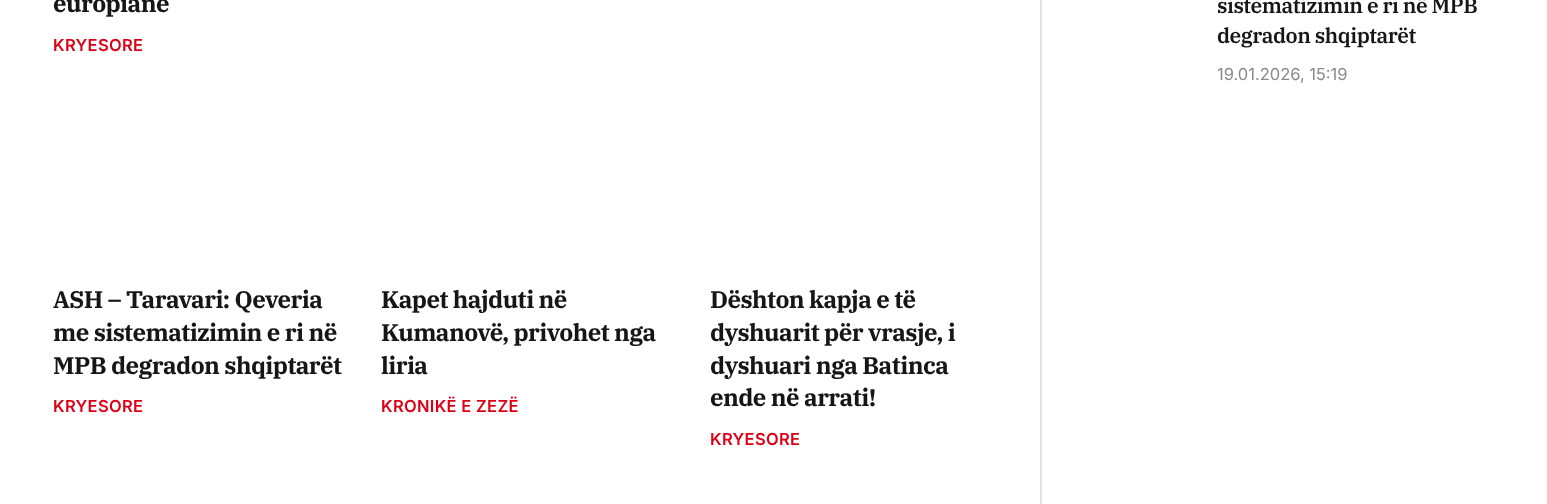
<!DOCTYPE html>
<meta charset="utf-8">
<style>body { margin: 0 } canvas { display: block }</style>
<canvas id="canvas" width="1547" height="504"></canvas>
<script type="module">
  const canvas = document.getElementById("canvas");
  const ctx = canvas.getContext("2d");
  ctx.miterLimit = 4;
  ctx.fontKerning = "normal";

  ctx.fillStyle = "#ffffff";
  ctx.fillRect(0, 0, 1547, 504);
  ctx.letterSpacing = "-0.6px";
  ctx.font = "bold 24px IBM Plex Serif";
  ctx.fillStyle = "#161616";
  ctx.fillText("europiane", 53, 12);
  ctx.letterSpacing = "0.3px";
  ctx.font = "600 16.5px Inter";
  ctx.fillStyle = "#dd0017";
  ctx.fillText("KRYESORE", 53, 51);
  ctx.letterSpacing = "-0.6px";
  ctx.font = "bold 24px IBM Plex Serif";
  ctx.fillStyle = "#161616";
  ctx.fillText("ASH – Taravari: Qeveria", 53, 308);
  ctx.fillText("me sistematizimin e ri në", 53, 341);
  ctx.fillText("MPB degradon shqiptarët", 53, 374);
  ctx.letterSpacing = "0.3px";
  ctx.font = "600 16.5px Inter";
  ctx.fillStyle = "#dd0017";
  ctx.fillText("KRYESORE", 53, 412);
  ctx.letterSpacing = "-0.6px";
  ctx.font = "bold 24px IBM Plex Serif";
  ctx.fillStyle = "#161616";
  ctx.fillText("Kapet hajduti në", 381, 308);
  ctx.fillText("Kumanovë, privohet nga", 381, 341);
  ctx.fillText("liria", 381, 374);
  ctx.letterSpacing = "0.3px";
  ctx.font = "600 16.5px Inter";
  ctx.fillStyle = "#dd0017";
  ctx.fillText("KRONIKË E ZEZË", 381, 412);
  ctx.letterSpacing = "-0.6px";
  ctx.font = "bold 24px IBM Plex Serif";
  ctx.fillStyle = "#161616";
  ctx.fillText("Dështon kapja e të", 710, 308);
  ctx.fillText("dyshuarit për vrasje, i", 710, 341);
  ctx.fillText("dyshuari nga Batinca", 710, 374);
  ctx.fillText("ende në arrati!", 710, 406);
  ctx.letterSpacing = "0.3px";
  ctx.font = "600 16.5px Inter";
  ctx.fillStyle = "#dd0017";
  ctx.fillText("KRYESORE", 710, 445);
  ctx.fillStyle = "#e2e2e2";
  ctx.fillRect(1040, 0, 2, 504);
  ctx.letterSpacing = "-0.5px";
  ctx.font = "600 21px IBM Plex Serif";
  ctx.fillStyle = "#161616";
  ctx.fillText("sistematizimin e ri në MPB", 1217, 13);
  ctx.fillText("degradon shqiptarët", 1217, 43);
  ctx.letterSpacing = "0px";
  ctx.font = "16.5px Inter";
  ctx.fillStyle = "#8a8a8a";
  ctx.fillText("19.01.2026, 15:19", 1217, 80);
</script>
